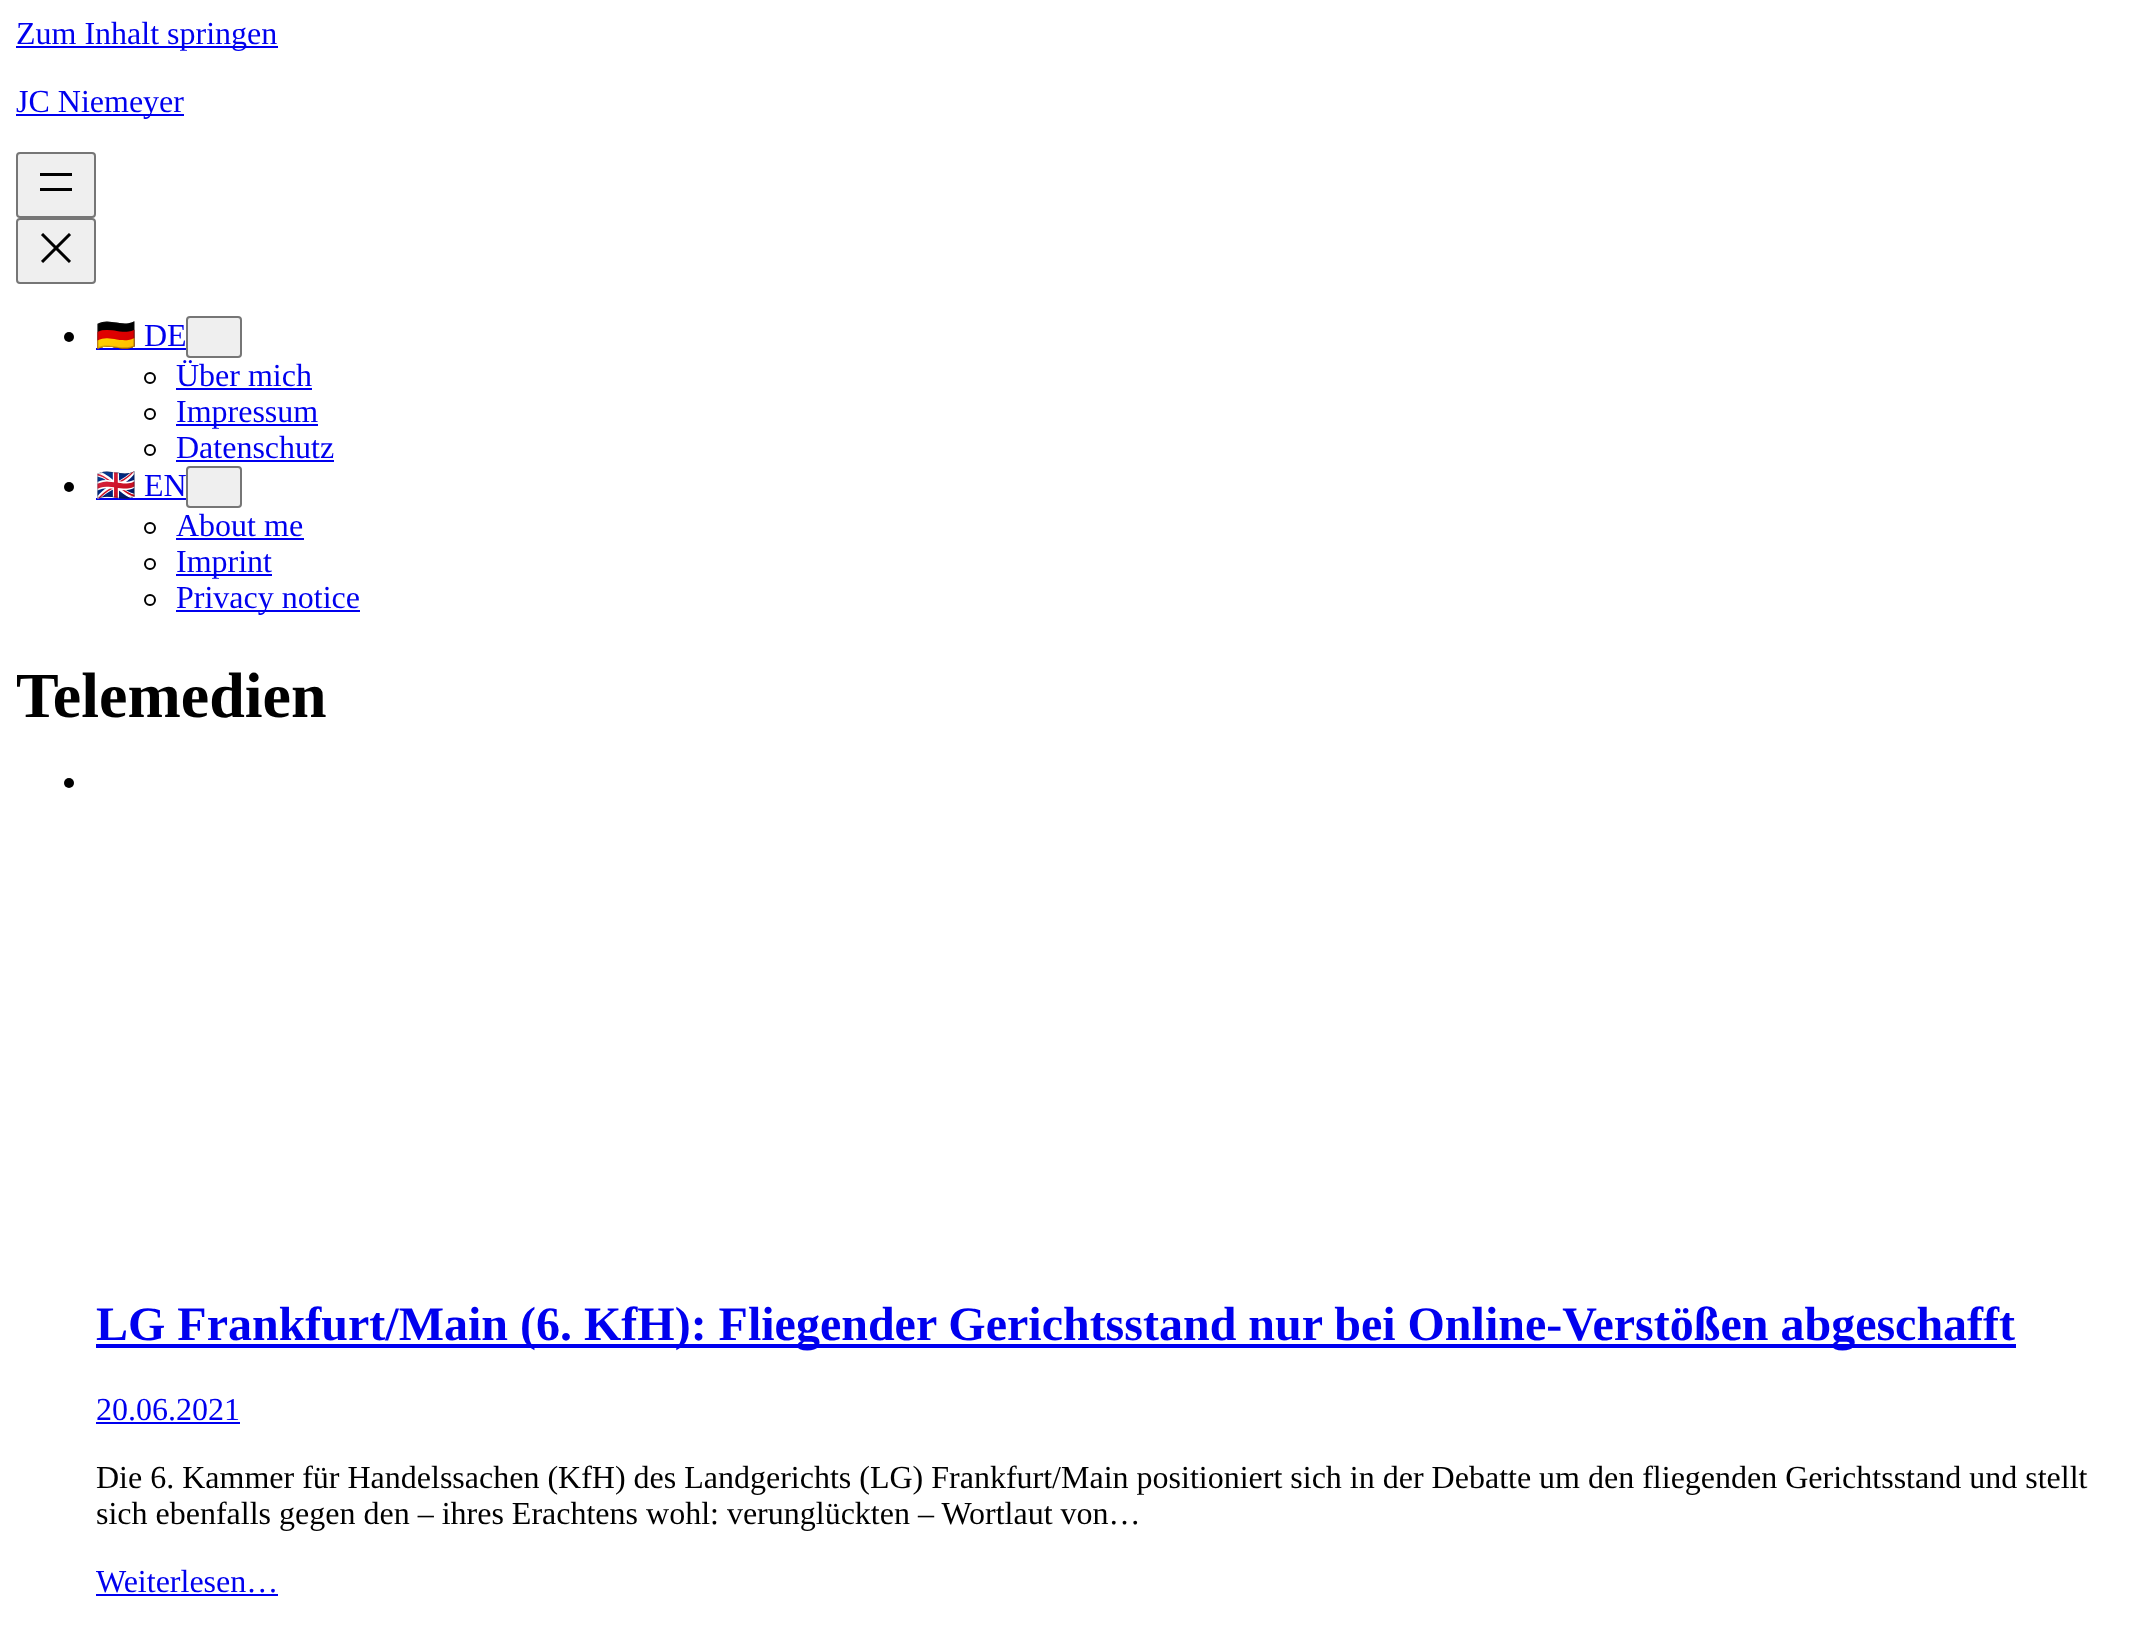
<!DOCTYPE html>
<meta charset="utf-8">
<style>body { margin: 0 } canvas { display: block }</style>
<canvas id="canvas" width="2146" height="1643"></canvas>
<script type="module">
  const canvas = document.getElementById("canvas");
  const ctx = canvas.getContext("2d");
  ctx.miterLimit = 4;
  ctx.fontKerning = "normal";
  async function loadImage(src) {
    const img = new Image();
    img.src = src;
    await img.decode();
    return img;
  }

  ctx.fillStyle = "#ffffff";
  ctx.fillRect(0, 0, 2146, 1643);
  ctx.fillStyle = "#0000ee";
  ctx.fillRect(16, 46, 262, 2);
  ctx.font = "32px Liberation Serif";
  ctx.fillText("Zum Inhalt springen", 16, 44);
  ctx.fillRect(16, 114, 168, 2);
  ctx.fillText("JC Niemeyer", 16, 112);
  ctx.fillStyle = "#efefef";
  ctx.beginPath();
  ctx.roundRect(17, 153, 78, 64, 3);
  ctx.fill();
  ctx.strokeStyle = "#767676";
  ctx.lineWidth = 2;
  ctx.stroke();
  ctx.fillStyle = "#000000";
  ctx.fillRect(40, 173, 32, 3);
  ctx.fillRect(40, 188, 32, 3);
  ctx.fillStyle = "#efefef";
  ctx.beginPath();
  ctx.roundRect(17, 219, 78, 64, 3);
  ctx.fill();
  ctx.stroke();
  ctx.drawImage(await loadImage("img1.png"), 41, 233, 30, 30);
  ctx.fillStyle = "#000000";
  ctx.beginPath();
  ctx.arc(69, 337, 5, 0, Math.PI * 2);
  ctx.fill();
  ctx.fillStyle = "#0000ee";
  ctx.fillRect(96, 348, 90, 2);
  ctx.font = "32px Noto Color Emoji";
  ctx.fillText("🇩🇪", 96, 346);
  ctx.font = "32px Liberation Serif";
  ctx.fillText("DE", 144, 346);
  ctx.fillStyle = "#efefef";
  ctx.beginPath();
  ctx.roundRect(187, 317, 54, 40, 3);
  ctx.fill();
  ctx.stroke();
  ctx.beginPath();
  ctx.arc(150, 378, 5, 0, Math.PI * 2);
  ctx.strokeStyle = "#000000";
  ctx.stroke();
  ctx.fillStyle = "#0000ee";
  ctx.fillText("Über mich", 176, 386);
  ctx.fillRect(176, 388, 136, 2);
  ctx.beginPath();
  ctx.arc(150, 414, 5, 0, Math.PI * 2);
  ctx.stroke();
  ctx.fillRect(176, 424, 142, 2);
  ctx.fillText("Impressum", 176, 422);
  ctx.beginPath();
  ctx.arc(150, 450, 5, 0, Math.PI * 2);
  ctx.stroke();
  ctx.fillText("Datenschutz", 176, 458);
  ctx.fillRect(176, 460, 158, 2);
  ctx.fillStyle = "#000000";
  ctx.beginPath();
  ctx.arc(69, 487, 5, 0, Math.PI * 2);
  ctx.fill();
  ctx.fillStyle = "#0000ee";
  ctx.fillRect(96, 498, 90, 2);
  ctx.font = "32px Noto Color Emoji";
  ctx.fillText("🇬🇧", 96, 496);
  ctx.font = "32px Liberation Serif";
  ctx.fillText("EN", 144, 496);
  ctx.fillStyle = "#efefef";
  ctx.beginPath();
  ctx.roundRect(187, 467, 54, 40, 3);
  ctx.fill();
  ctx.strokeStyle = "#767676";
  ctx.stroke();
  ctx.beginPath();
  ctx.arc(150, 528, 5, 0, Math.PI * 2);
  ctx.strokeStyle = "#000000";
  ctx.stroke();
  ctx.fillStyle = "#0000ee";
  ctx.fillText("About me", 176, 536);
  ctx.fillRect(176, 538, 128, 2);
  ctx.beginPath();
  ctx.arc(150, 564, 5, 0, Math.PI * 2);
  ctx.stroke();
  ctx.fillRect(176, 574, 96, 2);
  ctx.fillText("Imprint", 176, 572);
  ctx.beginPath();
  ctx.arc(150, 600, 5, 0, Math.PI * 2);
  ctx.stroke();
  ctx.fillRect(176, 610, 184, 2);
  ctx.fillText("Privacy notice", 176, 608);
  ctx.font = "bold 64px Liberation Serif";
  ctx.fillStyle = "#000000";
  ctx.fillText("Telemedien", 16, 717);
  ctx.beginPath();
  ctx.arc(69, 783, 5, 0, Math.PI * 2);
  ctx.fill();
  ctx.fillStyle = "#0000ee";
  ctx.fillRect(96, 1344, 1920, 4);
  ctx.font = "bold 48px Liberation Serif";
  ctx.fillText("LG Frankfurt/Main (6. KfH): Fliegender Gerichtsstand nur bei Online-Verstößen abgeschafft", 96, 1340);
  ctx.font = "32px Liberation Serif";
  ctx.fillText("20.06.2021", 96, 1420);
  ctx.fillRect(96, 1422, 144, 2);
  ctx.fillStyle = "#000000";
  ctx.fillText("Die 6. Kammer für Handelssachen (KfH) des Landgerichts (LG) Frankfurt/Main positioniert sich in der Debatte um den fliegenden Gerichtsstand und stellt", 96, 1488);
  ctx.fillText("sich ebenfalls gegen den – ihres Erachtens wohl: verunglückten – Wortlaut von…", 96, 1524);
  ctx.fillStyle = "#0000ee";
  ctx.fillText("Weiterlesen…", 96, 1592);
  ctx.fillRect(96, 1594, 182, 2);
</script>
